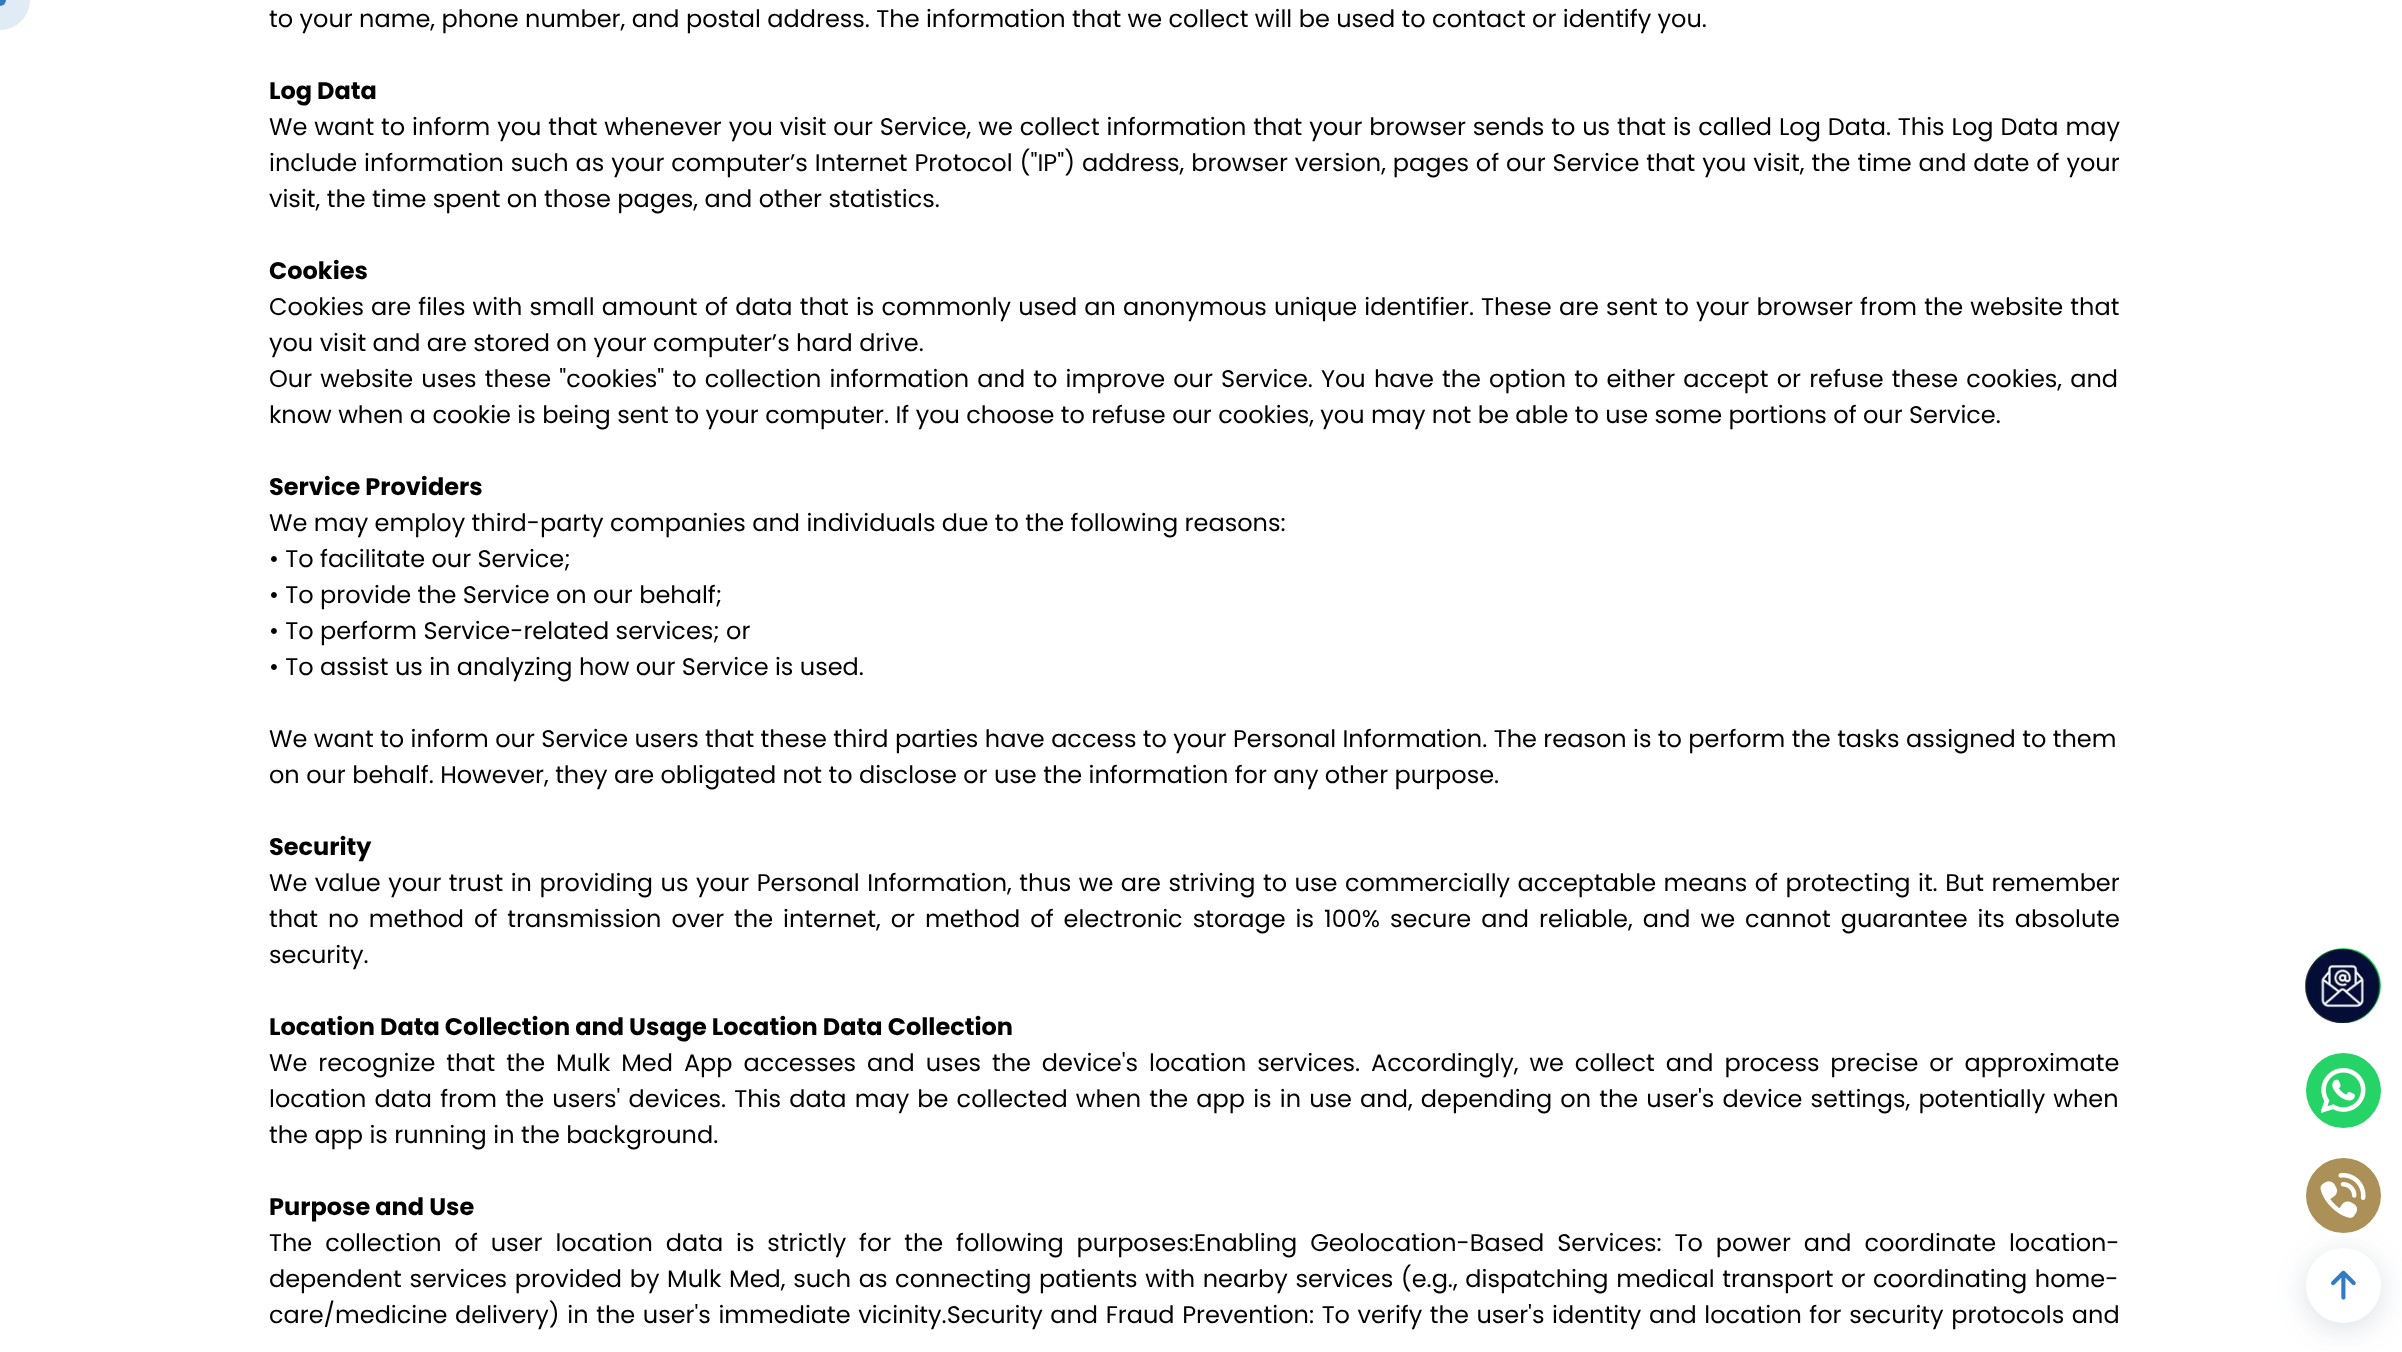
<!DOCTYPE html>
<meta charset="utf-8">
<style>body { margin: 0 } canvas { display: block }</style>
<canvas id="canvas" width="2402" height="1352"></canvas>
<script type="module">
  const canvas = document.getElementById("canvas");
  const ctx = canvas.getContext("2d");
  ctx.miterLimit = 4;
  ctx.fontKerning = "normal";
  async function loadImage(src) {
    const img = new Image();
    img.src = src;
    await img.decode();
    return img;
  }

  ctx.fillStyle = "#ffffff";
  ctx.fillRect(0, 0, 2402, 1352);
  ctx.fillStyle = "#e0ebf6";
  ctx.beginPath();
  ctx.arc(0, 0, 30, 0, Math.PI * 2);
  ctx.fill();
  ctx.fillStyle = "#307bc4";
  ctx.beginPath();
  ctx.arc(0, 0, 6, 0, Math.PI * 2);
  ctx.fill();
  ctx.font = "24px Poppins";
  ctx.fillStyle = "#000000";
  ctx.fillText("to your name, phone number, and postal address. The information that we collect will be used to contact or identify you.", 269, 27);
  ctx.font = "bold 24px Poppins";
  ctx.fillText("Log Data", 269, 99);
  ctx.wordSpacing = "0.5px";
  ctx.font = "24px Poppins";
  ctx.fillText("We want to inform you that whenever you visit our Service, we collect information that your browser sends to us that is called Log Data. This Log Data may", 269, 135);
  ctx.fillText("include information such as your computer’s Internet Protocol (\"IP\") address, browser version, pages of our Service that you visit, the time and date of your", 269, 171);
  ctx.wordSpacing = "0px";
  ctx.fillText("visit, the time spent on those pages, and other statistics.", 269, 207);
  ctx.font = "bold 24px Poppins";
  ctx.fillText("Cookies", 269, 279);
  ctx.wordSpacing = "0.75px";
  ctx.font = "24px Poppins";
  ctx.fillText("Cookies are files with small amount of data that is commonly used an anonymous unique identifier. These are sent to your browser from the website that", 269, 315);
  ctx.wordSpacing = "0px";
  ctx.fillText("you visit and are stored on your computer’s hard drive.", 269, 351);
  ctx.wordSpacing = "1.75px";
  ctx.fillText("Our website uses these \"cookies\" to collection information and to improve our Service. You have the option to either accept or refuse these cookies, and", 269, 387);
  ctx.wordSpacing = "0px";
  ctx.fillText("know when a cookie is being sent to your computer. If you choose to refuse our cookies, you may not be able to use some portions of our Service.", 269, 423);
  ctx.font = "bold 24px Poppins";
  ctx.fillText("Service Providers", 269, 495);
  ctx.font = "24px Poppins";
  ctx.fillText("We may employ third-party companies and individuals due to the following reasons:", 269, 531);
  ctx.fillText("• To facilitate our Service;", 269, 567);
  ctx.fillText("• To provide the Service on our behalf;", 269, 603);
  ctx.fillText("• To perform Service-related services; or", 269, 639);
  ctx.fillText("• To assist us in analyzing how our Service is used.", 269, 675);
  ctx.fillText("We want to inform our Service users that these third parties have access to your Personal Information. The reason is to perform the tasks assigned to them", 269, 747);
  ctx.fillText("on our behalf. However, they are obligated not to disclose or use the information for any other purpose.", 269, 783);
  ctx.font = "bold 24px Poppins";
  ctx.fillText("Security", 269, 855);
  ctx.wordSpacing = "1.1px";
  ctx.font = "24px Poppins";
  ctx.fillText("We value your trust in providing us your Personal Information, thus we are striving to use commercially acceptable means of protecting it. But remember", 269, 891);
  ctx.wordSpacing = "3.6px";
  ctx.fillText("that no method of transmission over the internet, or method of electronic storage is 100% secure and reliable, and we cannot guarantee its absolute", 269, 927);
  ctx.wordSpacing = "0px";
  ctx.fillText("security.", 269, 963);
  ctx.font = "bold 24px Poppins";
  ctx.fillText("Location Data Collection and Usage Location Data Collection", 269, 1035);
  ctx.wordSpacing = "4.5px";
  ctx.font = "24px Poppins";
  ctx.fillText("We recognize that the Mulk Med App accesses and uses the device's location services. Accordingly, we collect and process precise or approximate", 269, 1071);
  ctx.wordSpacing = "1.75px";
  ctx.fillText("location data from the users' devices. This data may be collected when the app is in use and, depending on the user's device settings, potentially when", 269, 1107);
  ctx.wordSpacing = "0px";
  ctx.fillText("the app is running in the background.", 269, 1143);
  ctx.font = "bold 24px Poppins";
  ctx.fillText("Purpose and Use", 269, 1215);
  ctx.wordSpacing = "6.5px";
  ctx.font = "24px Poppins";
  ctx.fillText("The collection of user location data is strictly for the following purposes:Enabling Geolocation-Based Services: To power and coordinate location-", 269, 1251);
  ctx.wordSpacing = "1.25px";
  ctx.fillText("dependent services provided by Mulk Med, such as connecting patients with nearby services (e.g., dispatching medical transport or coordinating home-", 269, 1287);
  ctx.wordSpacing = "1.2px";
  ctx.fillText("care/medicine delivery) in the user's immediate vicinity.Security and Fraud Prevention: To verify the user's identity and location for security protocols and", 269, 1323);
  ctx.drawImage(await loadImage("img2.png"), 2305, 949, 74, 74);
  ctx.fillStyle = "#25d366";
  ctx.beginPath();
  ctx.arc(2343.5, 985.5, 37.5, 0, Math.PI * 2);
  ctx.fill();
  ctx.drawImage(await loadImage("img1.png"), 2305, 949, 75, 74);
  ctx.beginPath();
  ctx.arc(2343.5, 1090.5, 37.5, 0, Math.PI * 2);
  ctx.fill();
  ctx.drawImage(await loadImage("img3.png"), 2321, 1068, 45, 45);
  ctx.fillStyle = "rgba(39, 71, 96, 0.17)";
  ctx.filter = "blur(15px)";
  ctx.beginPath();
  ctx.roundRect(2306, 1254, 75, 75, 37.5);
  ctx.fill();
  ctx.filter = "none";
  ctx.fillStyle = "#ab9157";
  ctx.beginPath();
  ctx.arc(2343.5, 1195.5, 37.5, 0, Math.PI * 2);
  ctx.fill();
  ctx.drawImage(await loadImage("img4.png"), 2320, 1173, 46, 45);
  ctx.fillStyle = "#ffffff";
  ctx.beginPath();
  ctx.arc(2343.5, 1285.5, 37.5, 0, Math.PI * 2);
  ctx.fill();
  ctx.drawImage(await loadImage("img5.png"), 2331, 1270, 25, 30);
</script>
